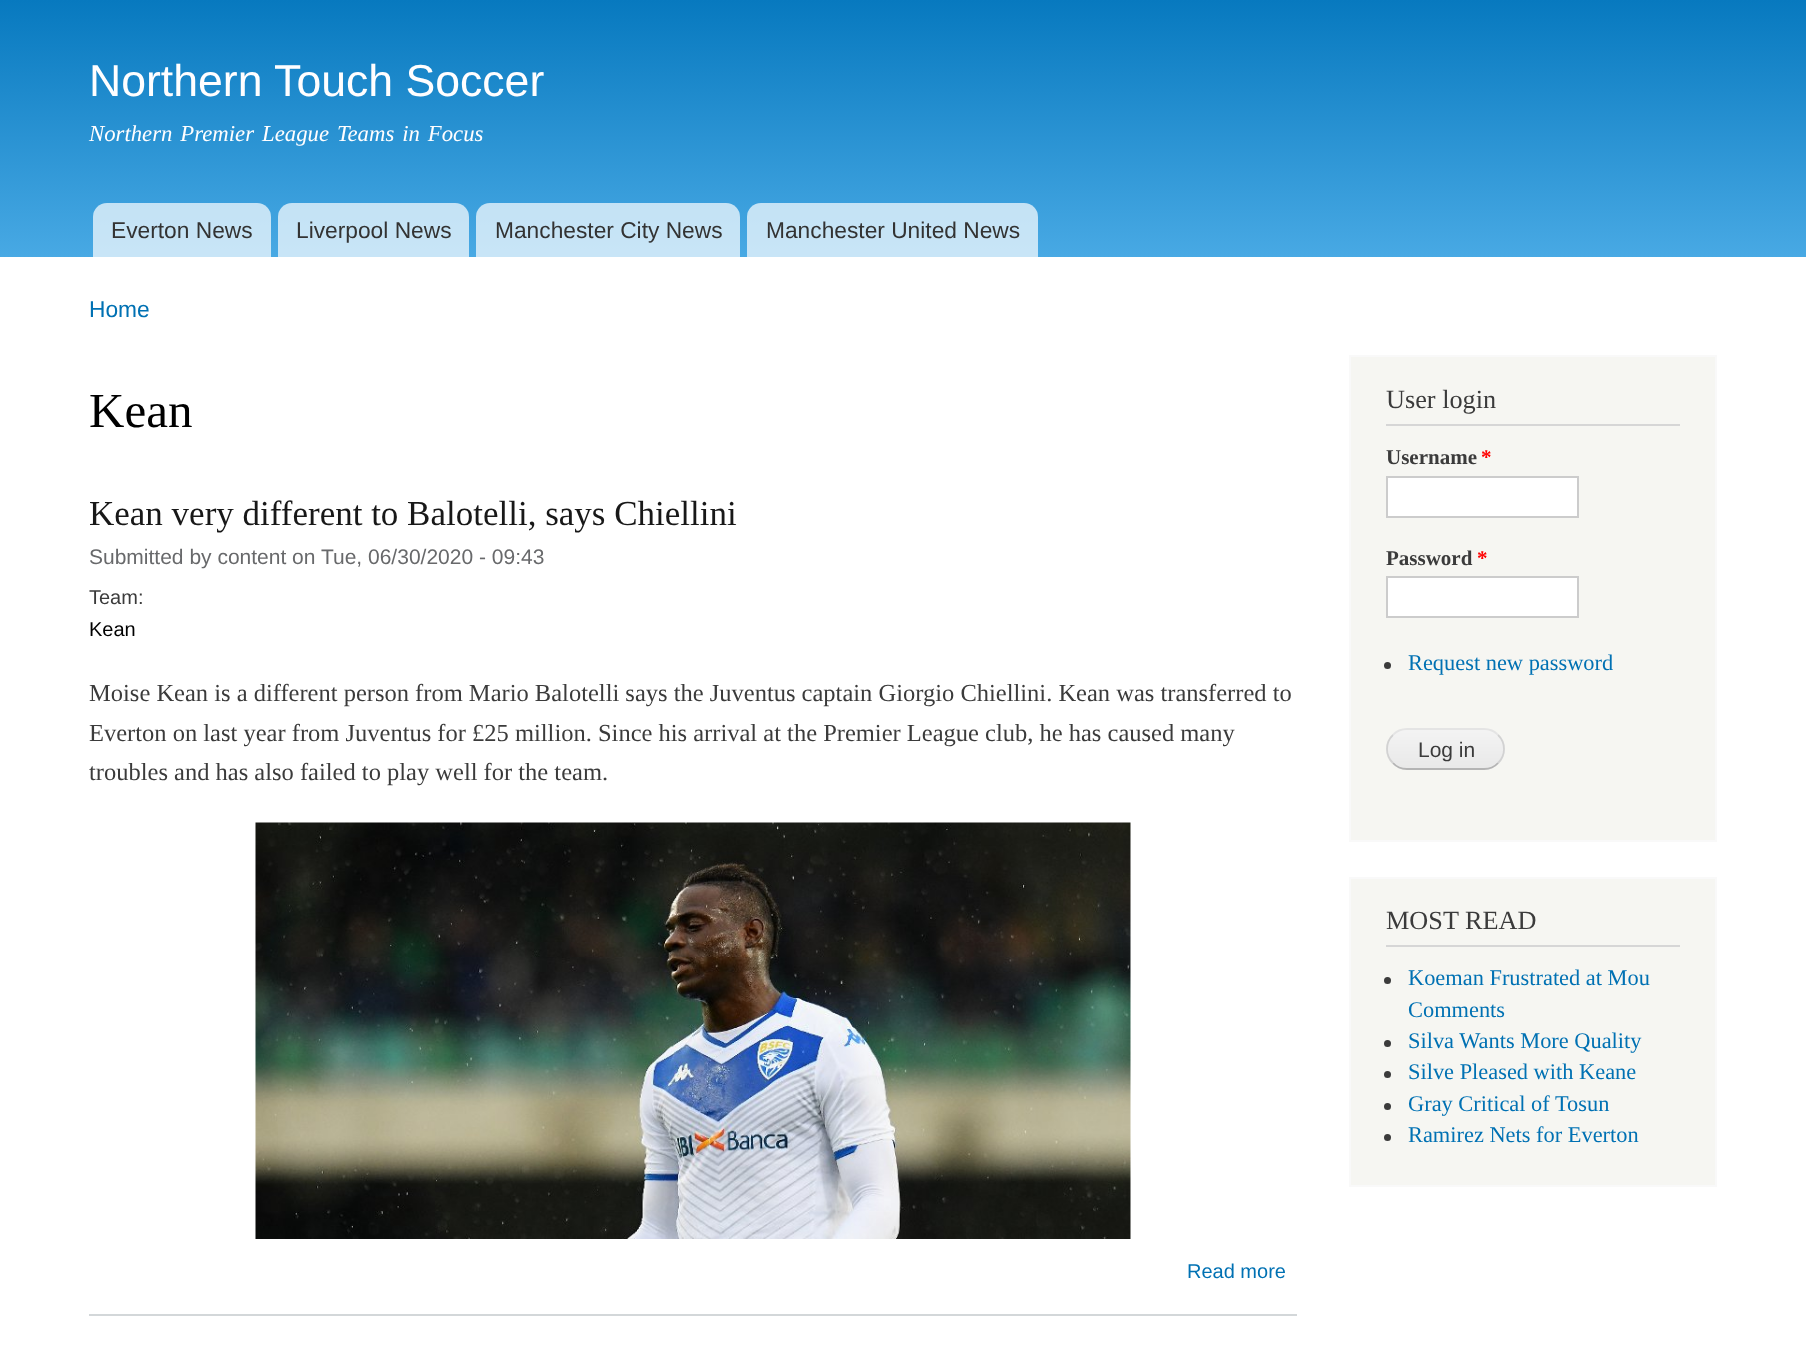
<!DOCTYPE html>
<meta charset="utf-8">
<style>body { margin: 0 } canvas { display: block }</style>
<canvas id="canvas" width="1806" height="1363"></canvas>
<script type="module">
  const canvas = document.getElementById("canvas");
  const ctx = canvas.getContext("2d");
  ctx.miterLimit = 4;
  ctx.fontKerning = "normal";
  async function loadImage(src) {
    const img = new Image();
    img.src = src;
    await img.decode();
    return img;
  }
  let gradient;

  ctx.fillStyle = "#ffffff";
  ctx.fillRect(0, 0, 1806, 1363);
  gradient = ctx.createLinearGradient(903, 0, 903, 257);
  gradient.addColorStop(0, "#0779bf");
  gradient.addColorStop(1, "#48a9e4");
  ctx.fillStyle = gradient;
  ctx.fillRect(0, 0, 1806, 257);
  ctx.font = "44.6px Liberation Sans";
  ctx.fillStyle = "#fffeff";
  ctx.fillText("Northern Touch Soccer", 89, 96);
  ctx.wordSpacing = "2.25px";
  ctx.font = "italic 22.75px Liberation Serif";
  ctx.fillText("Northern Premier League Teams in Focus", 89, 141);
  ctx.fillStyle = "rgba(255, 255, 255, 0.7)";
  ctx.beginPath();
  ctx.roundRect(93, 203, 178, 54, [14, 14, 0, 0]);
  ctx.fill();
  ctx.wordSpacing = "0px";
  ctx.font = "22.75px Liberation Sans";
  ctx.fillStyle = "#333333";
  ctx.fillText("Everton News", 111, 238);
  ctx.fillStyle = "rgba(255, 255, 255, 0.7)";
  ctx.beginPath();
  ctx.roundRect(278, 203, 191, 54, [14, 14, 0, 0]);
  ctx.fill();
  ctx.fillStyle = "#333333";
  ctx.fillText("Liverpool News", 296, 238);
  ctx.fillStyle = "rgba(255, 255, 255, 0.7)";
  ctx.beginPath();
  ctx.roundRect(476, 203, 264, 54, [14, 14, 0, 0]);
  ctx.fill();
  ctx.fillStyle = "#333333";
  ctx.fillText("Manchester City News", 495, 238);
  ctx.fillStyle = "rgba(255, 255, 255, 0.7)";
  ctx.beginPath();
  ctx.roundRect(747, 203, 291, 54, [14, 14, 0, 0]);
  ctx.fill();
  ctx.fillStyle = "#333333";
  ctx.fillText("Manchester United News", 766, 238);
  ctx.fillStyle = "#0071b3";
  ctx.fillText("Home", 89, 317);
  ctx.font = "49px Liberation Serif";
  ctx.fillStyle = "#000000";
  ctx.fillText("Kean", 89, 427);
  ctx.fillStyle = "#d3d7d9";
  ctx.fillRect(89, 1314, 1208, 2);
  ctx.font = "35px Liberation Serif";
  ctx.fillStyle = "#181818";
  ctx.fillText("Kean very different to Balotelli, says Chiellini", 89, 525);
  ctx.font = "21px Liberation Sans";
  ctx.fillStyle = "#68696b";
  ctx.fillText("Submitted by content on Tue, 06/30/2020 - 09:43", 89, 564);
  ctx.font = "20px Liberation Sans";
  ctx.fillStyle = "#3b3b3b";
  ctx.fillText("Team:", 89, 604);
  ctx.fillStyle = "#000000";
  ctx.fillText("Kean", 89, 636);
  ctx.font = "24.5px Liberation Serif";
  ctx.fillStyle = "#3b3b3b";
  ctx.fillText("Moise Kean is a different person from Mario Balotelli says the Juventus captain Giorgio Chiellini. Kean was transferred to", 89, 701);
  ctx.fillText("Everton on last year from Juventus for £25 million. Since his arrival at the Premier League club, he has caused many", 89, 741);
  ctx.fillText("troubles and has also failed to play well for the team.", 89, 780);
  ctx.drawImage(await loadImage("img1.png"), 255, 822, 876, 417);
  ctx.font = "20px Liberation Sans";
  ctx.fillStyle = "#0071b3";
  ctx.fillText("Read more", 1187, 1278);
  ctx.fillStyle = "#f6f6f2";
  ctx.beginPath();
  ctx.rect(1350, 356, 366, 485);
  ctx.fill();
  ctx.strokeStyle = "#f9f9f9";
  ctx.lineWidth = 2;
  ctx.stroke();
  ctx.fillStyle = "#d6d6d6";
  ctx.fillRect(1386, 424, 294, 2);
  ctx.font = "26.25px Liberation Serif";
  ctx.fillStyle = "#3b3b3b";
  ctx.fillText("User login", 1386, 408);
  ctx.font = "bold 21px Liberation Serif";
  ctx.fillText("Username", 1386, 464);
  ctx.fillStyle = "#ff0000";
  ctx.fillText("*", 1481, 464);
  ctx.fillStyle = "#ffffff";
  ctx.beginPath();
  ctx.rect(1387, 477, 191, 40);
  ctx.fill();
  ctx.strokeStyle = "#cccccc";
  ctx.stroke();
  ctx.fillStyle = "#3b3b3b";
  ctx.fillText("Password", 1386, 565);
  ctx.fillStyle = "#ff0000";
  ctx.fillText("*", 1477, 565);
  ctx.fillStyle = "#ffffff";
  ctx.beginPath();
  ctx.rect(1387, 577, 191, 40);
  ctx.fill();
  ctx.stroke();
  ctx.fillStyle = "#3b3b3b";
  ctx.beginPath();
  ctx.arc(1387.5, 665.5, 3.5, 0, Math.PI * 2);
  ctx.fill();
  ctx.font = "22.4px Liberation Serif";
  ctx.fillStyle = "#0071b3";
  ctx.fillText("Request new password", 1408, 670);
  ctx.drawImage(await loadImage("img2.png"), 1386, 730, 119, 40);
  ctx.beginPath();
  ctx.moveTo(1393, 735);
  ctx.bezierCurveTo(1396.5, 731, 1401.5, 729, 1407, 729);
  ctx.lineTo(1484, 729);
  ctx.bezierCurveTo(1489.5, 729, 1494.5, 731, 1498, 735);
  ctx.strokeStyle = "#e4e4e4";
  ctx.lineWidth = 1.8;
  ctx.stroke();
  ctx.beginPath();
  ctx.moveTo(1498, 735);
  ctx.bezierCurveTo(1506, 742.5, 1506, 755.5, 1498, 763);
  ctx.strokeStyle = "#d2d2d2";
  ctx.stroke();
  ctx.beginPath();
  ctx.moveTo(1498, 763);
  ctx.bezierCurveTo(1494.5, 767, 1489.5, 769, 1484, 769);
  ctx.lineTo(1407, 769);
  ctx.bezierCurveTo(1401.5, 769, 1396.5, 767, 1393, 763);
  ctx.strokeStyle = "#b4b4b4";
  ctx.stroke();
  ctx.beginPath();
  ctx.moveTo(1393, 763);
  ctx.bezierCurveTo(1385, 755.5, 1385, 742.5, 1393, 735);
  ctx.strokeStyle = "#d2d2d2";
  ctx.stroke();
  ctx.font = "21px Liberation Sans";
  ctx.fillStyle = "#3b3b3b";
  ctx.fillText("Log in", 1418, 757);
  ctx.fillStyle = "#f6f6f2";
  ctx.beginPath();
  ctx.rect(1350, 878, 366, 308);
  ctx.fill();
  ctx.strokeStyle = "#f9f9f9";
  ctx.lineWidth = 2;
  ctx.stroke();
  ctx.fillStyle = "#d6d6d6";
  ctx.fillRect(1386, 945, 294, 2);
  ctx.font = "26.25px Liberation Serif";
  ctx.fillStyle = "#3b3b3b";
  ctx.fillText("MOST READ", 1386, 929);
  ctx.beginPath();
  ctx.arc(1387.5, 980.5, 3.5, 0, Math.PI * 2);
  ctx.fill();
  ctx.font = "22.4px Liberation Serif";
  ctx.fillStyle = "#0071b3";
  ctx.fillText("Koeman Frustrated at Mou", 1408, 985);
  ctx.fillText("Comments", 1408, 1017);
  ctx.fillStyle = "#3b3b3b";
  ctx.beginPath();
  ctx.arc(1387.5, 1043.5, 3.5, 0, Math.PI * 2);
  ctx.fill();
  ctx.fillStyle = "#0071b3";
  ctx.fillText("Silva Wants More Quality", 1408, 1048);
  ctx.fillStyle = "#3b3b3b";
  ctx.beginPath();
  ctx.arc(1387.5, 1074.5, 3.5, 0, Math.PI * 2);
  ctx.fill();
  ctx.fillStyle = "#0071b3";
  ctx.fillText("Silve Pleased with Keane", 1408, 1079);
  ctx.fillStyle = "#3b3b3b";
  ctx.beginPath();
  ctx.arc(1387.5, 1106.5, 3.5, 0, Math.PI * 2);
  ctx.fill();
  ctx.fillStyle = "#0071b3";
  ctx.fillText("Gray Critical of Tosun", 1408, 1111);
  ctx.fillStyle = "#3b3b3b";
  ctx.beginPath();
  ctx.arc(1387.5, 1137.5, 3.5, 0, Math.PI * 2);
  ctx.fill();
  ctx.fillStyle = "#0071b3";
  ctx.fillText("Ramirez Nets for Everton", 1408, 1142);
</script>
